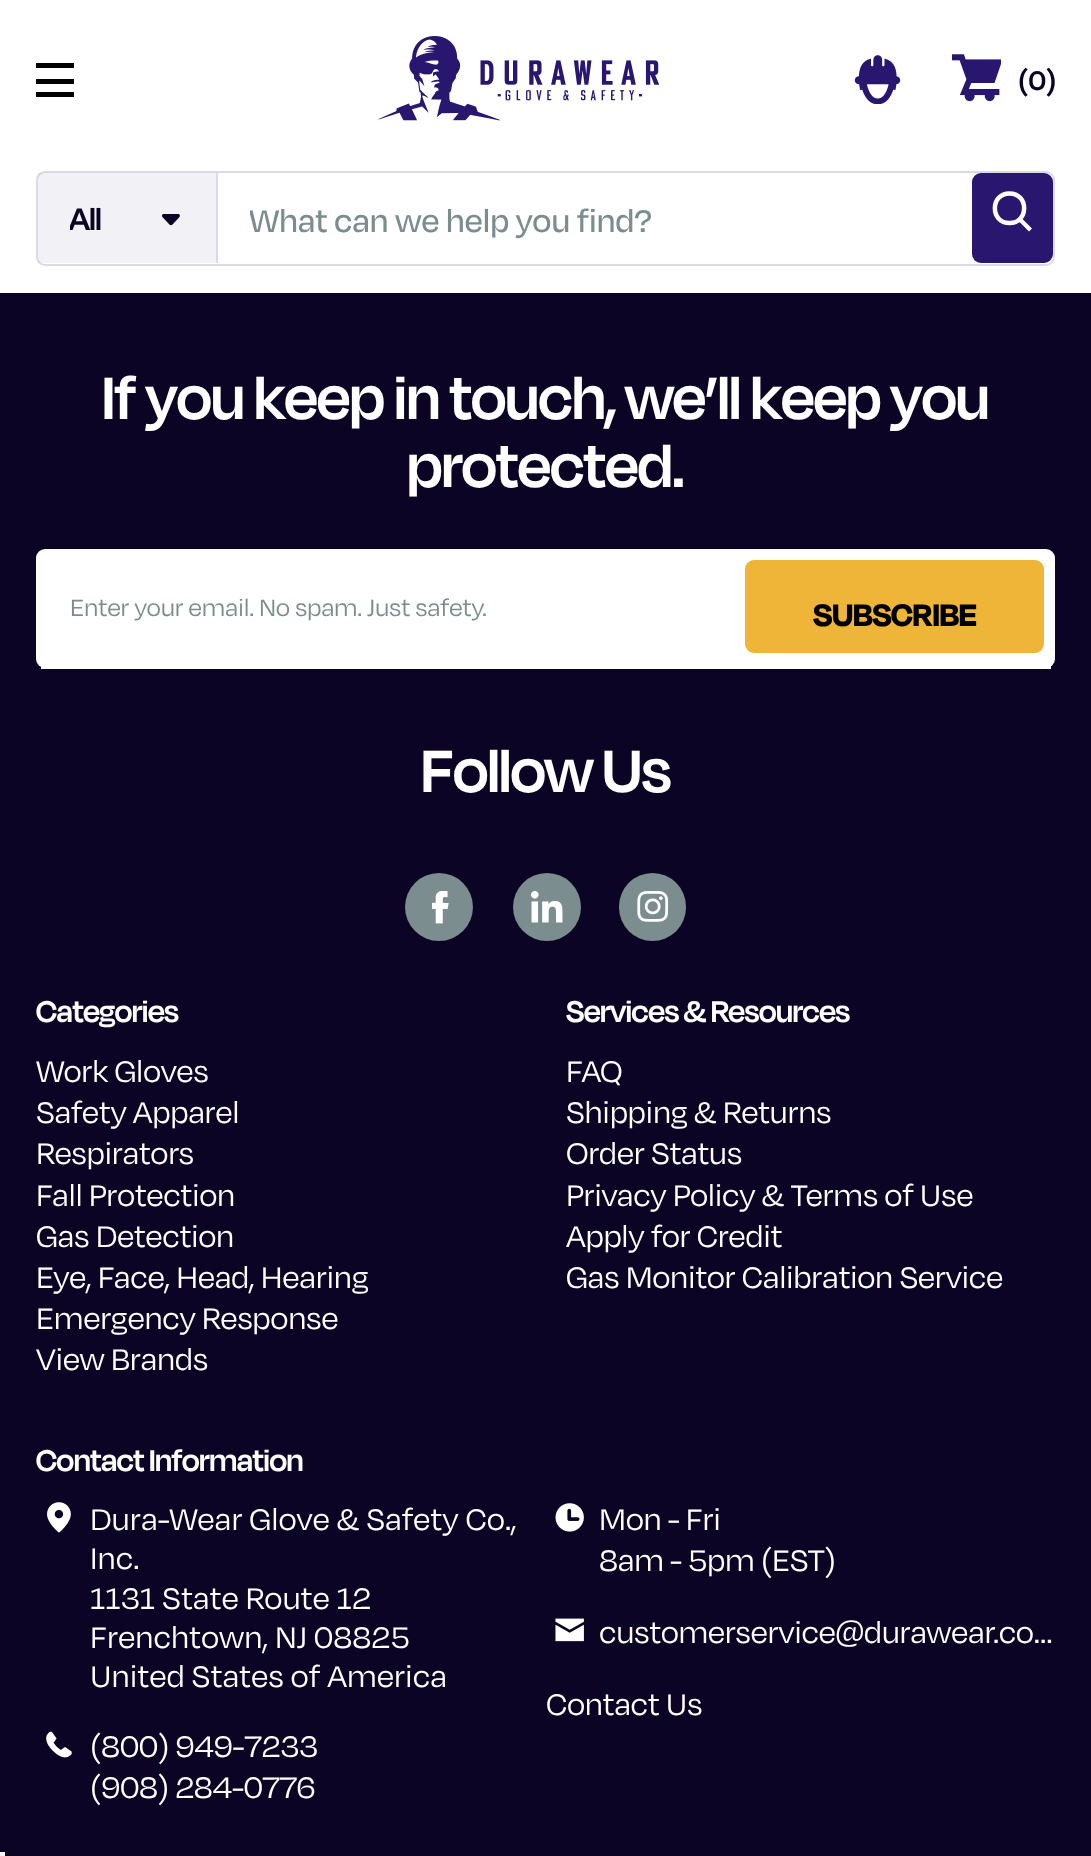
<!DOCTYPE html>
<meta charset="utf-8">
<style>body { margin: 0 } canvas { display: block }</style>
<canvas id="canvas" width="1091" height="1856"></canvas>
<script type="module">
  const canvas = document.getElementById("canvas");
  const ctx = canvas.getContext("2d");
  ctx.miterLimit = 4;
  ctx.fontKerning = "normal";
  async function loadImage(src) {
    const img = new Image();
    img.src = src;
    await img.decode();
    return img;
  }

  ctx.fillStyle = "#0c0424";
  ctx.fillRect(0, 0, 1091, 1856);
  ctx.fillStyle = "#ffffff";
  ctx.fillRect(0, 0, 1091, 293);
  ctx.fillStyle = "#000000";
  ctx.fillRect(36, 79, 38, 5);
  ctx.fillRect(36, 63, 38, 5);
  ctx.fillRect(36, 92, 38, 5);
  ctx.drawImage(await loadImage("img1.png"), 378, 36, 281, 85);
  ctx.drawImage(await loadImage("img2.png"), 854, 55, 47, 49);
  ctx.drawImage(await loadImage("img3.png"), 952, 54, 49, 48);
  ctx.letterSpacing = "-0.35px";
  ctx.font = "600 31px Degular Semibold";
  ctx.fillStyle = "#0c0424";
  ctx.fillText("(0)", 1018, 90);
  ctx.beginPath();
  ctx.roundRect(37, 172, 1017, 93, 8);
  ctx.strokeStyle = "#dddae8";
  ctx.lineWidth = 2;
  ctx.stroke();
  ctx.fillStyle = "rgba(41, 22, 110, 0.06)";
  ctx.fillRect(38, 173, 178, 90);
  ctx.drawImage(await loadImage("img4.png"), 162, 214, 18, 12);
  ctx.fillStyle = "#dddae8";
  ctx.fillRect(216, 173, 2, 90);
  ctx.save();
  ctx.beginPath();
  ctx.rect(70, 200, 92, 36);
  ctx.clip();
  ctx.font = "600 36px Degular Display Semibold";
  ctx.fillStyle = "#0c0424";
  ctx.fillText("All", 69, 230);
  ctx.restore();
  ctx.save();
  ctx.beginPath();
  ctx.rect(250, 198, 691, 41);
  ctx.clip();
  ctx.font = "500 36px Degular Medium";
  ctx.fillStyle = "#7b8d8e";
  ctx.fillText("What can we help you find?", 249, 232);
  ctx.restore();
  ctx.fillStyle = "#29166e";
  ctx.beginPath();
  ctx.roundRect(972, 173, 81, 90, 9);
  ctx.fill();
  ctx.fillStyle = "#ffffff";
  ctx.beginPath();
  ctx.moveTo(1027.5, 230);
  ctx.lineTo(1029, 231.5);
  ctx.lineTo(1032, 228.5);
  ctx.lineTo(1030.5, 227);
  ctx.closePath();
  ctx.moveTo(1019.5, 219);
  ctx.lineTo(1018, 220.5);
  ctx.lineTo(1027.5, 230);
  ctx.lineTo(1030.5, 227);
  ctx.lineTo(1021, 217.5);
  ctx.closePath();
  ctx.fill();
  ctx.beginPath();
  ctx.moveTo(1009.5, 193.5);
  ctx.bezierCurveTo(1029, 193.5, 1029, 223, 1009.5, 223);
  ctx.bezierCurveTo(990, 223, 990, 193.5, 1009.5, 193.5);
  ctx.closePath();
  ctx.strokeStyle = "#ffffff";
  ctx.lineWidth = 4.5;
  ctx.stroke();
  ctx.letterSpacing = "-0.55px";
  ctx.font = "600 68.8px Degular Display Semibold";
  ctx.fillText("If you keep in touch, we’ll keep you", 102, 419);
  ctx.fillText("protected.", 407, 487);
  ctx.beginPath();
  ctx.roundRect(36, 549, 1019, 119, 9);
  ctx.fill();
  ctx.fillRect(41, 666, 1010, 3);
  ctx.letterSpacing = "-0.25px";
  ctx.font = "27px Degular";
  ctx.fillStyle = "#7b8d8e";
  ctx.fillText("Enter your email. No spam. Just safety.", 70, 616);
  ctx.fillStyle = "#eeb539";
  ctx.beginPath();
  ctx.roundRect(745, 560, 299, 93, 9);
  ctx.fill();
  ctx.letterSpacing = "-0.35px";
  ctx.font = "bold 36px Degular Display";
  ctx.fillStyle = "#000000";
  ctx.fillText("SUBSCRIBE", 813, 626);
  ctx.letterSpacing = "-0.55px";
  ctx.font = "600 68.8px Degular Display Semibold";
  ctx.fillStyle = "#ffffff";
  ctx.fillText("Follow Us", 421, 792);
  ctx.fillStyle = "#7b8d8e";
  ctx.beginPath();
  ctx.arc(439, 907, 34, 0, Math.PI * 2);
  ctx.fill();
  ctx.drawImage(await loadImage("img5.png"), 432, 891, 17, 33);
  ctx.beginPath();
  ctx.arc(547, 907, 34, 0, Math.PI * 2);
  ctx.fill();
  ctx.drawImage(await loadImage("img6.png"), 531, 891, 32, 32);
  ctx.beginPath();
  ctx.roundRect(619, 873, 67, 68, 33.5);
  ctx.fill();
  ctx.drawImage(await loadImage("img7.png"), 637, 891, 32, 31);
  ctx.letterSpacing = "-0.4px";
  ctx.font = "600 34.5px Degular Display Semibold";
  ctx.fillStyle = "#ffffff";
  ctx.fillText("Categories", 36, 1022);
  ctx.letterSpacing = "-0.35px";
  ctx.font = "34.25px Degular";
  ctx.fillText("Work Gloves", 36, 1082);
  ctx.fillText("Safety Apparel", 36, 1123);
  ctx.fillText("Respirators", 36, 1164);
  ctx.fillText("Fall Protection", 36, 1206);
  ctx.fillText("Gas Detection", 36, 1247);
  ctx.fillText("Eye, Face, Head, Hearing", 36, 1288);
  ctx.fillText("Emergency Response", 36, 1329);
  ctx.fillText("View Brands", 36, 1370);
  ctx.letterSpacing = "-0.4px";
  ctx.font = "600 34.5px Degular Display Semibold";
  ctx.fillText("Services & Resources", 566, 1022);
  ctx.letterSpacing = "-0.35px";
  ctx.font = "34.25px Degular";
  ctx.fillText("FAQ", 566, 1082);
  ctx.fillText("Shipping & Returns", 566, 1123);
  ctx.fillText("Order Status", 566, 1164);
  ctx.fillText("Privacy Policy & Terms of Use", 566, 1206);
  ctx.fillText("Apply for Credit", 566, 1247);
  ctx.fillText("Gas Monitor Calibration Service", 566, 1288);
  ctx.letterSpacing = "-0.4px";
  ctx.font = "600 34.5px Degular Display Semibold";
  ctx.fillText("Contact Information", 36, 1471);
  ctx.drawImage(await loadImage("img8.png"), 47, 1502, 24, 31);
  ctx.letterSpacing = "0px";
  ctx.font = "34.25px Degular";
  ctx.fillText("Dura-Wear Glove & Safety Co.,", 90, 1530);
  ctx.fillText("Inc.", 90, 1569);
  ctx.fillText("1131 State Route 12", 90, 1609);
  ctx.fillText("Frenchtown, NJ 08825", 90, 1648);
  ctx.fillText("United States of America", 90, 1687);
  ctx.drawImage(await loadImage("img9.png"), 46, 1731, 26, 27);
  ctx.letterSpacing = "-0.35px";
  ctx.fillText("(800) 949-7233", 90, 1757);
  ctx.fillText("(908) 284-0776", 90, 1798);
  ctx.drawImage(await loadImage("img10.png"), 555, 1503, 29, 29);
  ctx.fillText("Mon - Fri", 599, 1530);
  ctx.fillText("8am - 5pm (EST)", 599, 1571);
  ctx.drawImage(await loadImage("img11.png"), 555, 1618, 29, 24);
  ctx.fillText("customerservice@durawear.co…", 599, 1643);
  ctx.fillText("Contact Us", 546, 1715);
  ctx.fillStyle = "#f5f5f5";
  ctx.fillRect(0, 1852, 5, 4);
</script>
